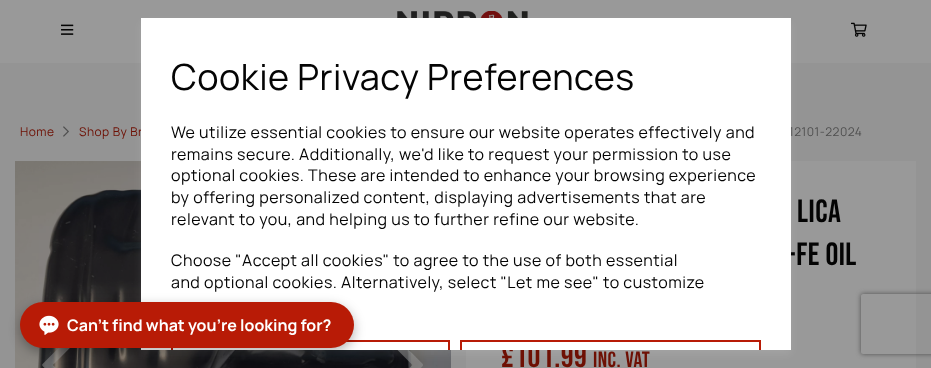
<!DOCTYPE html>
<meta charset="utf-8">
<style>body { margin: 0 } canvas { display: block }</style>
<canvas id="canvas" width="931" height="368"></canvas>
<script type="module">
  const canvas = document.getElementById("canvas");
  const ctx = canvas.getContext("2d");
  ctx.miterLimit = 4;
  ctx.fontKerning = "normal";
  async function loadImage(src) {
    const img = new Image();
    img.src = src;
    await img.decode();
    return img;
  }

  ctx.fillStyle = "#949494";
  ctx.fillRect(0, 0, 931, 368);
  ctx.fillStyle = "#999999";
  ctx.fillRect(0, 0, 931, 63);
  ctx.drawImage(await loadImage("img1.png"), 397, 11, 131, 7);
  ctx.drawImage(await loadImage("img2.png"), 61, 24, 13, 11);
  ctx.drawImage(await loadImage("img3.png"), 851, 22, 16, 15);
  ctx.drawImage(await loadImage("img5.png"), 15, 161, 436, 207);
  ctx.drawImage(await loadImage("img7.png"), 397, 350, 26, 18);
  ctx.fillRect(466, 161, 450, 207);
  ctx.fillStyle = "rgba(255, 255, 255, 0.1)";
  ctx.filter = "blur(4px)";
  ctx.beginPath();
  ctx.rect(141, 22, 650, 332);
  ctx.fill();
  ctx.filter = "none";
  ctx.letterSpacing = "0.5px";
  ctx.font = "12px Manrope";
  ctx.fillStyle = "#6e1004";
  ctx.fillText("Shop By Br", 79, 136);
  ctx.fillStyle = "#4e4e4e";
  ctx.fillText("12101-22024", 789, 136);
  ctx.font = "32px Bebas Neue";
  ctx.fillStyle = "#040404";
  ctx.fillText("-FE OIL", 787, 265);
  ctx.fillStyle = "#6e1004";
  ctx.fillText("£101.99", 501, 367);
  ctx.fillStyle = "#ffffff";
  ctx.fillRect(141, 18, 650, 332);
  ctx.font = "36px Manrope";
  ctx.fillStyle = "#040404";
  ctx.fillText("Cookie Privacy Preferences", 171, 90);
  ctx.font = "16px Manrope";
  ctx.fillText("We utilize essential cookies to ensure our website operates effectively and", 171, 138);
  ctx.fillText("remains secure. Additionally, we'd like to request your permission to use", 171, 160);
  ctx.fillText("optional cookies. These are intended to enhance your browsing experience", 171, 181);
  ctx.fillText("by offering personalized content, displaying advertisements that are", 171, 203);
  ctx.fillText("relevant to you, and helping us to further refine our website.", 171, 225);
  ctx.fillText("Choose \"Accept all cookies\" to agree to the use of both essential", 171, 266);
  ctx.fillText("and optional cookies. Alternatively, select \"Let me see\" to customize", 171, 288);
  ctx.save();
  ctx.beginPath();
  ctx.rect(141, 18, 650, 332);
  ctx.clip();
  ctx.strokeStyle = "#b81b06";
  ctx.lineWidth = 2;
  ctx.strokeRect(172, 341, 277, 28);
  ctx.strokeRect(461, 341, 299, 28);
  ctx.restore();
  ctx.font = "12px Manrope";
  ctx.fillStyle = "#6e1004";
  ctx.fillText("Home", 20, 136);
  ctx.drawImage(await loadImage("img4.png"), 63, 126, 6, 11);
  ctx.drawImage(await loadImage("img6.png"), 42, 348, 28, 20);
  ctx.font = "32px Bebas Neue";
  ctx.fillStyle = "#040404";
  ctx.fillText("LICA", 797, 222);
  ctx.font = "22px Bebas Neue";
  ctx.fillStyle = "#6e1004";
  ctx.fillText("inc. VAT", 593, 367);
  ctx.save();
  ctx.beginPath();
  ctx.moveTo(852, 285);
  ctx.lineTo(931, 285);
  ctx.lineTo(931, 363);
  ctx.lineTo(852, 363);
  ctx.closePath();
  ctx.moveTo(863, 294);
  ctx.lineTo(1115, 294);
  ctx.bezierCurveTo(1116, 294, 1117, 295, 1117, 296);
  ctx.lineTo(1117, 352);
  ctx.bezierCurveTo(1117, 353, 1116, 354, 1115, 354);
  ctx.lineTo(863, 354);
  ctx.bezierCurveTo(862, 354, 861, 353, 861, 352);
  ctx.lineTo(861, 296);
  ctx.bezierCurveTo(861, 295, 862, 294, 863, 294);
  ctx.closePath();
  ctx.clip("evenodd");
  ctx.fillStyle = "#4d4d4d";
  ctx.filter = "blur(2.5px)";
  ctx.beginPath();
  ctx.roundRect(861, 294, 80, 60, 2);
  ctx.fill();
  ctx.filter = "none";
  ctx.restore();
  ctx.fillStyle = "rgba(0, 0, 0, 0.3)";
  ctx.filter = "blur(6px)";
  ctx.beginPath();
  ctx.roundRect(20, 306, 334, 46, 23);
  ctx.fill();
  ctx.filter = "none";
  ctx.fillStyle = "#b81b06";
  ctx.beginPath();
  ctx.roundRect(20, 302, 334, 46, 23);
  ctx.fill();
  ctx.drawImage(await loadImage("img8.png"), 39, 315, 20, 20);
  ctx.letterSpacing = "0px";
  ctx.font = "bold 16px Manrope";
  ctx.fillStyle = "#ffffff";
  ctx.fillText("Can't find what you're looking for?", 67, 331);
</script>
